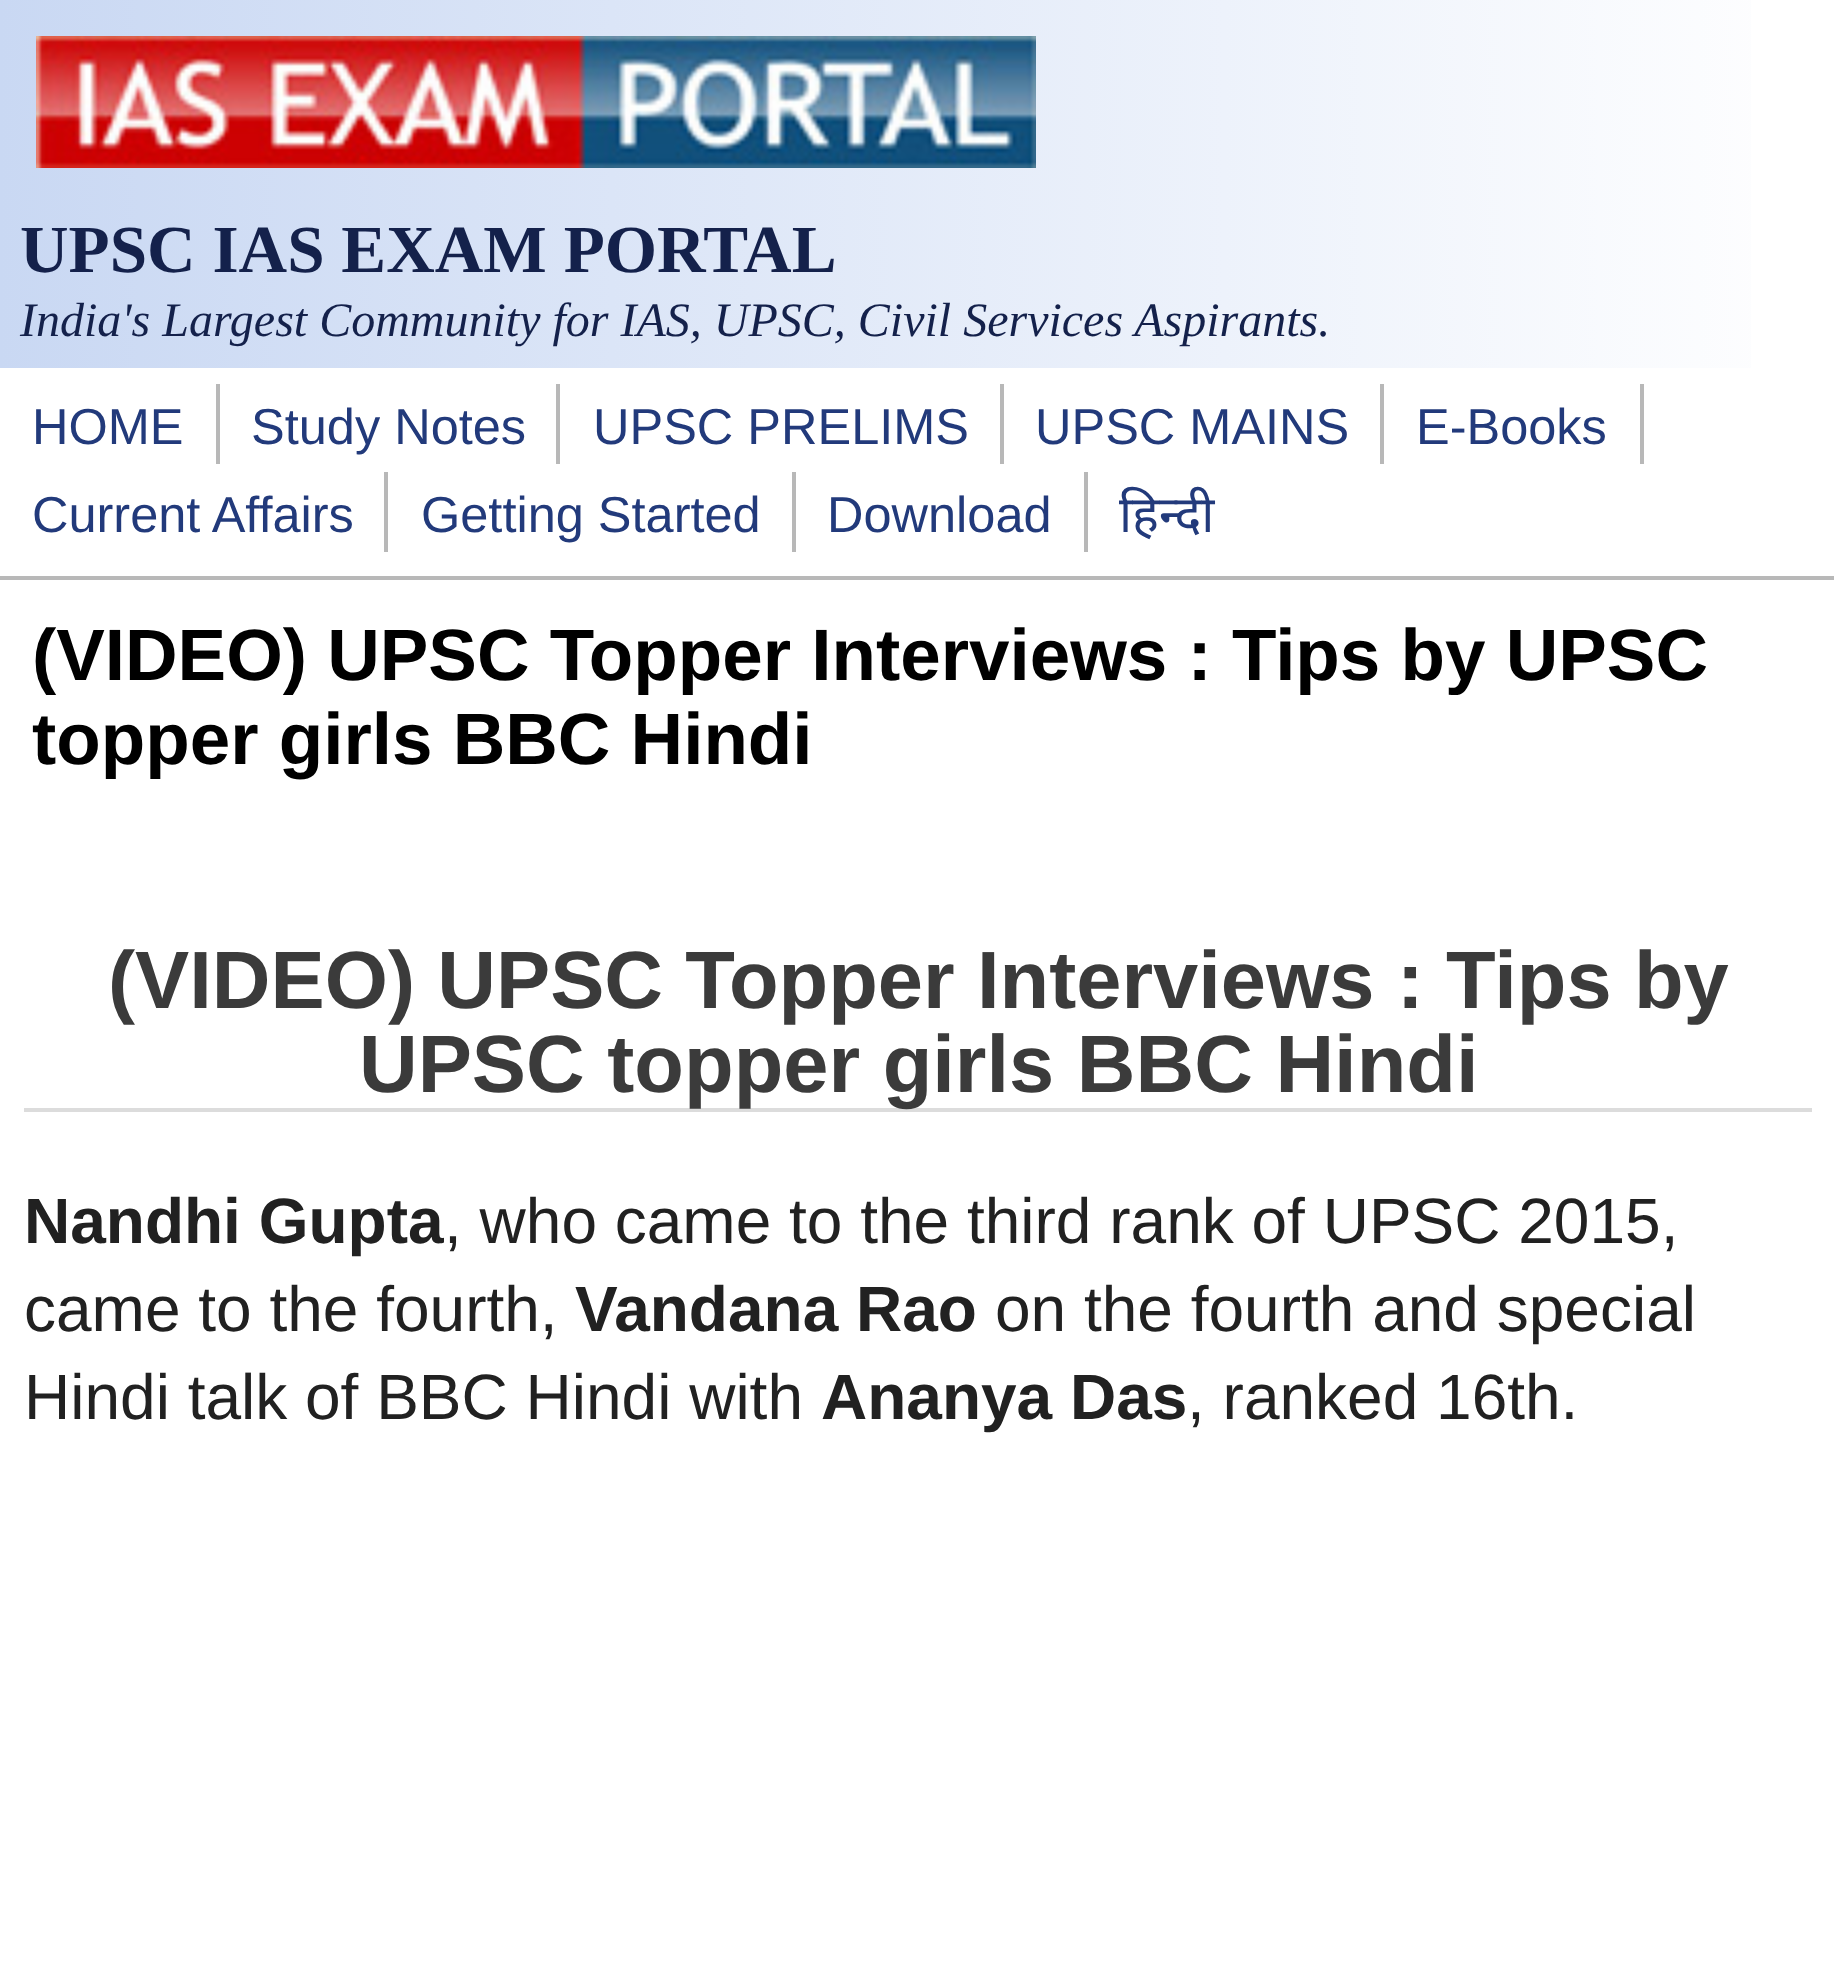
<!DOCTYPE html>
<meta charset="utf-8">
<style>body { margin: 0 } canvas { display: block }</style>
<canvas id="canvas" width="1834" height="1981"></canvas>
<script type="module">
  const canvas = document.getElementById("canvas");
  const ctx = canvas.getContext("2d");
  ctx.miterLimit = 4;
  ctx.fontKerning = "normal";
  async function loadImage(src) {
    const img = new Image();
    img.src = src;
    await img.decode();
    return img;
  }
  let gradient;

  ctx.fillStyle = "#ffffff";
  ctx.fillRect(0, 0, 1834, 1981);
  gradient = ctx.createLinearGradient(0, 184, 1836, 184);
  gradient.addColorStop(0, "#c9d8f3");
  gradient.addColorStop(1, "#ffffff");
  ctx.fillStyle = gradient;
  ctx.fillRect(0, 0, 1751, 368);
  ctx.drawImage(await loadImage("img1.png"), 36, 36, 1000, 132);
  ctx.font = "bold 67.25px Liberation Serif";
  ctx.fillStyle = "#14214b";
  ctx.fillText("UPSC IAS EXAM PORTAL", 20, 272);
  ctx.font = "italic 48px Liberation Serif";
  ctx.fillText("India's Largest Community for IAS, UPSC, Civil Services Aspirants.", 20, 336);
  ctx.fillStyle = "#b8b8b8";
  ctx.fillRect(0, 576, 1834, 4);
  ctx.font = "50.5px Liberation Sans";
  ctx.fillStyle = "#223a7b";
  ctx.fillText("HOME", 32, 444);
  ctx.fillStyle = "#b8b8b8";
  ctx.fillRect(216, 384, 4, 80);
  ctx.fillStyle = "#223a7b";
  ctx.fillText("Study Notes", 251, 444);
  ctx.fillStyle = "#b8b8b8";
  ctx.fillRect(556, 384, 4, 80);
  ctx.fillStyle = "#223a7b";
  ctx.fillText("UPSC PRELIMS", 593, 444);
  ctx.fillStyle = "#b8b8b8";
  ctx.fillRect(1000, 384, 4, 80);
  ctx.fillStyle = "#223a7b";
  ctx.fillText("UPSC MAINS", 1035, 444);
  ctx.fillStyle = "#b8b8b8";
  ctx.fillRect(1380, 384, 4, 80);
  ctx.fillStyle = "#223a7b";
  ctx.fillText("E-Books", 1416, 444);
  ctx.fillStyle = "#b8b8b8";
  ctx.fillRect(1640, 384, 4, 80);
  ctx.fillStyle = "#223a7b";
  ctx.fillText("Current Affairs", 32, 532);
  ctx.fillStyle = "#b8b8b8";
  ctx.fillRect(384, 472, 4, 80);
  ctx.fillStyle = "#223a7b";
  ctx.fillText("Getting Started", 421, 532);
  ctx.fillStyle = "#b8b8b8";
  ctx.fillRect(792, 472, 4, 80);
  ctx.fillStyle = "#223a7b";
  ctx.fillText("Download", 827, 532);
  ctx.fillStyle = "#b8b8b8";
  ctx.fillRect(1084, 472, 4, 80);
  ctx.font = "50.5px Noto Sans";
  ctx.fillStyle = "#223a7b";
  ctx.fillText("हिन्दी", 1119, 532);
  ctx.font = "bold 72.8px Liberation Sans";
  ctx.fillStyle = "#000000";
  ctx.fillText("(VIDEO) UPSC Topper Interviews : Tips by UPSC", 32, 680);
  ctx.fillText("topper girls BBC Hindi", 32, 764);
  ctx.fillStyle = "#dcdcdc";
  ctx.fillRect(24, 1108, 1788, 4);
  ctx.wordSpacing = "-0.25px";
  ctx.font = "bold 81.25px Liberation Sans";
  ctx.fillStyle = "#3b3b3b";
  ctx.fillText("(VIDEO) UPSC Topper Interviews : Tips by", 108, 1008);
  ctx.wordSpacing = "0px";
  ctx.fillText("UPSC topper girls BBC Hindi", 359, 1092);
  ctx.font = "bold 64px Liberation Sans";
  ctx.fillStyle = "#212121";
  ctx.fillText("Nandhi Gupta", 24, 1243);
  ctx.font = "64px Liberation Sans";
  ctx.fillText(", who came to the third rank of UPSC 2015,", 444, 1243);
  ctx.fillText("came to the fourth,", 24, 1331);
  ctx.font = "bold 64px Liberation Sans";
  ctx.fillText("Vandana Rao", 575, 1331);
  ctx.font = "64px Liberation Sans";
  ctx.fillText("on the fourth and special", 995, 1331);
  ctx.fillText("Hindi talk of BBC Hindi with", 24, 1419);
  ctx.font = "bold 64px Liberation Sans";
  ctx.fillText("Ananya Das", 821, 1419);
  ctx.font = "64px Liberation Sans";
  ctx.fillText(", ranked 16th.", 1187, 1419);
</script>
